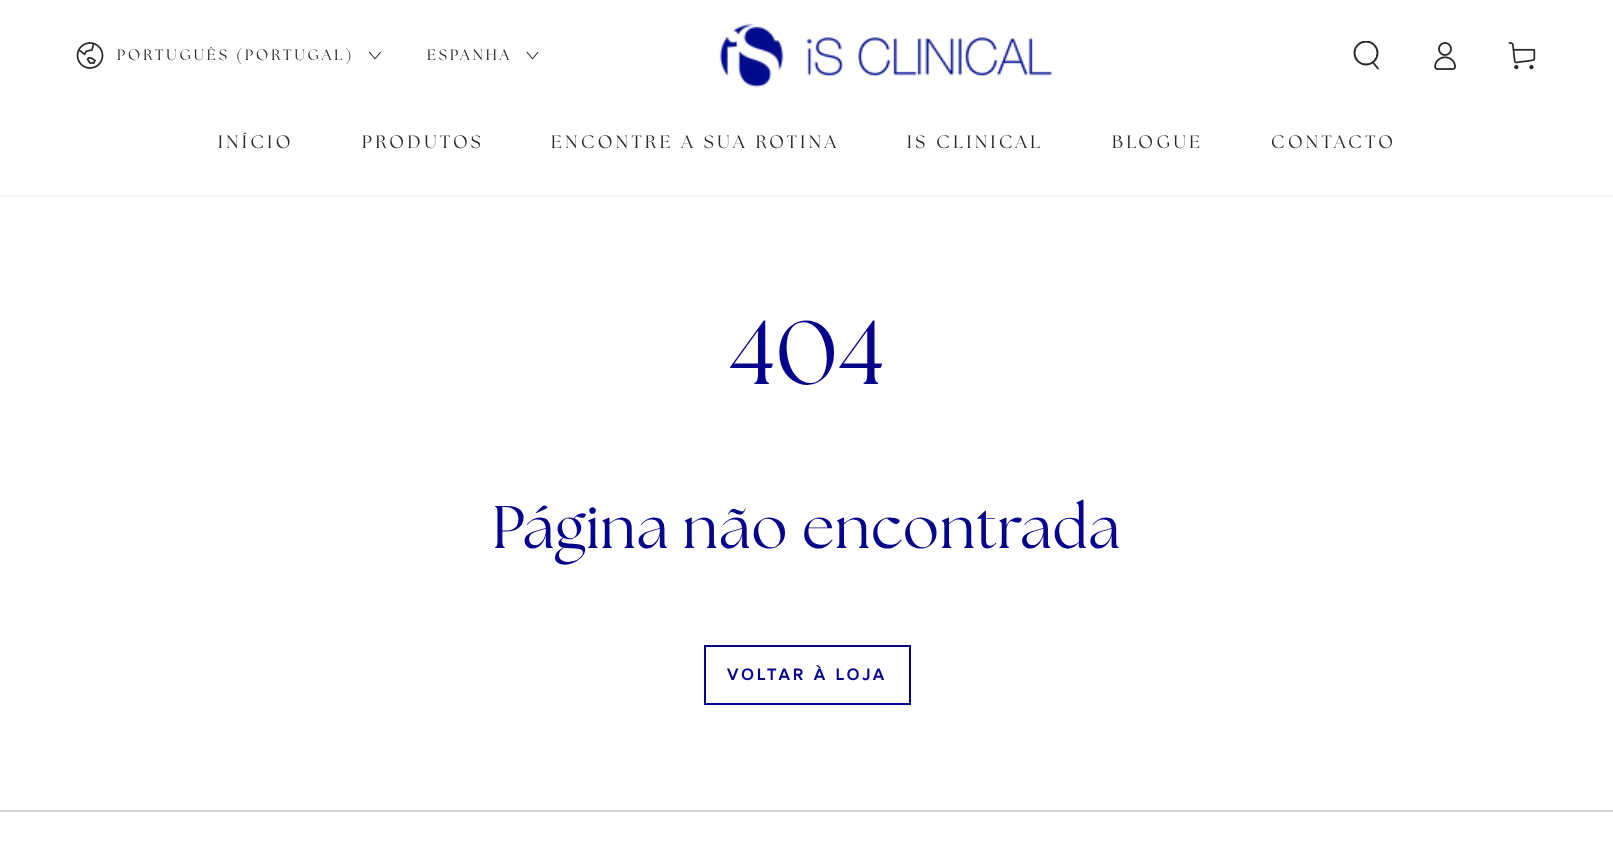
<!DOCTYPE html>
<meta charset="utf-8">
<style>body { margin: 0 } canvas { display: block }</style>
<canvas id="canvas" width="1613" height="841"></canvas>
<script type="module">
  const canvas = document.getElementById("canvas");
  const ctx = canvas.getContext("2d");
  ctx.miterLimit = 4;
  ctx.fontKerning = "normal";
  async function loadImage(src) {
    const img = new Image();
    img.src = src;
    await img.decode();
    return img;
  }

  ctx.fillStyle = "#ffffff";
  ctx.fillRect(0, 0, 1613, 841);
  ctx.fillStyle = "#f2f2f4";
  ctx.fillRect(0, 195, 1613, 2);
  ctx.drawImage(await loadImage("img1.png"), 76, 42, 28, 27);
  ctx.letterSpacing = "3px";
  ctx.font = "15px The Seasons";
  ctx.fillStyle = "#282828";
  ctx.fillText("PORTUGUÊS (PORTUGAL)", 117, 60);
  ctx.drawImage(await loadImage("img2.png"), 369, 51, 12, 9);
  ctx.fillText("ESPANHA", 427, 60);
  ctx.drawImage(await loadImage("img3.png"), 526, 51, 13, 9);
  ctx.drawImage(await loadImage("img4.png"), 719, 23, 333, 65);
  ctx.save();
  ctx.beginPath();
  ctx.rect(1352, 41, 30, 30);
  ctx.clip();
  ctx.beginPath();
  ctx.arc(1366, 53, 11.5, 0, Math.PI * 2);
  ctx.strokeStyle = "#282828";
  ctx.lineWidth = 1.9;
  ctx.stroke();
  ctx.restore();
  ctx.beginPath();
  ctx.moveTo(1373, 62.5);
  ctx.lineTo(1378, 68.5);
  ctx.strokeStyle = "#282828";
  ctx.lineWidth = 1.9;
  ctx.lineCap = "round";
  ctx.stroke();
  ctx.drawImage(await loadImage("img5.png"), 1434, 42, 22, 28);
  ctx.drawImage(await loadImage("img6.png"), 1508, 42, 28, 28);
  ctx.letterSpacing = "3.6px";
  ctx.font = "18px The Seasons";
  ctx.fillText("INÍCIO", 218, 148);
  ctx.fillText("PRODUTOS", 362, 148);
  ctx.fillText("ENCONTRE A SUA ROTINA", 551, 148);
  ctx.fillText("IS CLINICAL", 907, 148);
  ctx.fillText("BLOGUE", 1112, 148);
  ctx.fillText("CONTACTO", 1271, 148);
  ctx.letterSpacing = "0.9px";
  ctx.font = "90px The Seasons";
  ctx.fillStyle = "#06038d";
  ctx.fillText("404", 729, 384);
  ctx.font = "60px The Seasons";
  ctx.fillText("Página não encontrada", 492, 548);
  ctx.strokeStyle = "#06038d";
  ctx.lineWidth = 2;
  ctx.strokeRect(705, 646, 205, 58);
  ctx.letterSpacing = "3.25px";
  ctx.font = "bold 16.5px Proxima Nova";
  ctx.fillText("VOLTAR À LOJA", 727, 680);
  ctx.fillStyle = "#d2d5d9";
  ctx.fillRect(0, 810, 1613, 2);
</script>
